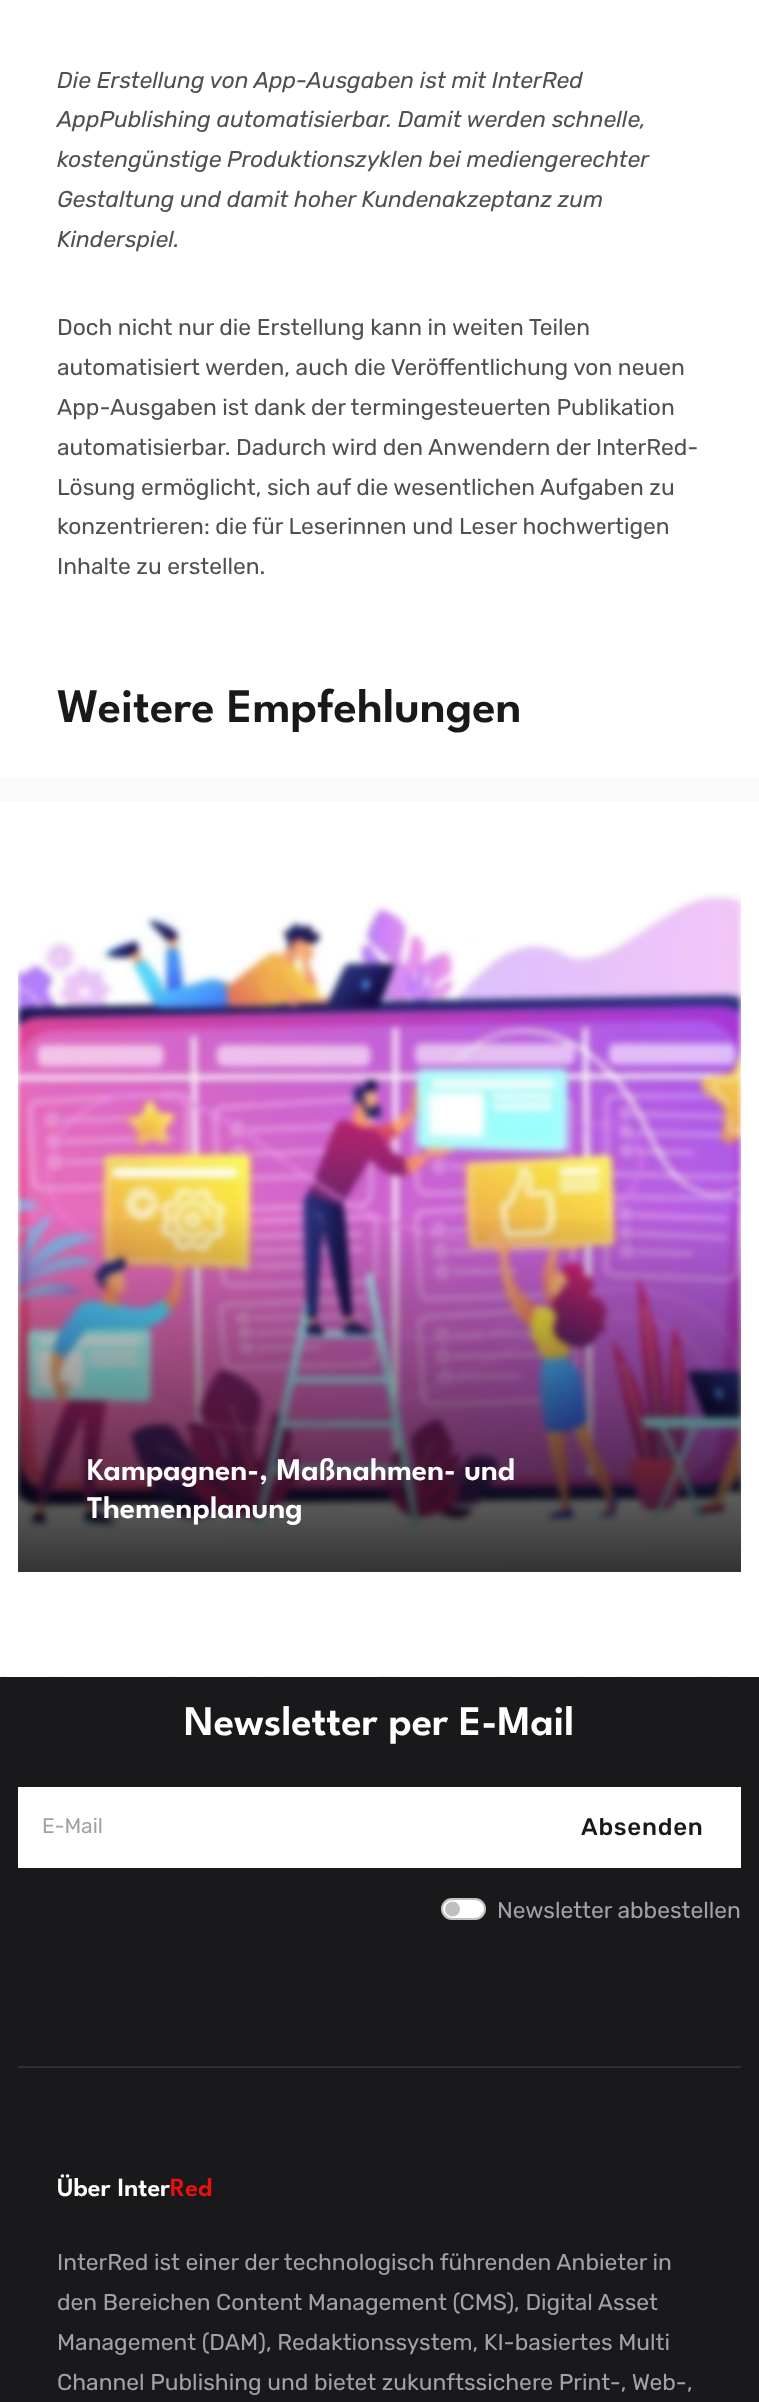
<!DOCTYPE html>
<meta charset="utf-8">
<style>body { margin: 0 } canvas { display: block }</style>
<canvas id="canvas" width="759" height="2402"></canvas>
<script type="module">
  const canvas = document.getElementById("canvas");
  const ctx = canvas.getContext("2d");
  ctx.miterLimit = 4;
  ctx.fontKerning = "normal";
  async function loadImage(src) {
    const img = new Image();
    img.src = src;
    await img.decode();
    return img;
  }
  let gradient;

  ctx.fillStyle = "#ffffff";
  ctx.fillRect(0, 0, 759, 2402);
  ctx.font = "italic 300 22.8px Rubik";
  ctx.fillStyle = "#505050";
  ctx.fillText("Die Erstellung von App-Ausgaben ist mit InterRed", 57, 88);
  ctx.fillText("AppPublishing automatisierbar. Damit werden schnelle,", 57, 127);
  ctx.fillText("kostengünstige Produktionszyklen bei mediengerechter", 57, 167);
  ctx.fillText("Gestaltung und damit hoher Kundenakzeptanz zum", 57, 207);
  ctx.fillText("Kinderspiel.", 57, 247);
  ctx.font = "300 22.8px Rubik";
  ctx.fillText("Doch nicht nur die Erstellung kann in weiten Teilen", 57, 335);
  ctx.fillText("automatisiert werden, auch die Veröffentlichung von neuen", 57, 375);
  ctx.fillText("App-Ausgaben ist dank der termingesteuerten Publikation", 57, 415);
  ctx.fillText("automatisierbar. Dadurch wird den Anwendern der InterRed-", 57, 455);
  ctx.fillText("Lösung ermöglicht, sich auf die wesentlichen Aufgaben zu", 57, 495);
  ctx.fillText("konzentrieren: die für Leserinnen und Leser hochwertigen", 57, 534);
  ctx.fillText("Inhalte zu erstellen.", 57, 574);
  ctx.font = "100 48px League Spartan";
  ctx.fillStyle = "#19191c";
  ctx.fillText("Weitere Empfehlungen", 57, 722);
  ctx.fillStyle = "#fafafb";
  ctx.fillRect(0, 777, 759, 24);
  ctx.drawImage(await loadImage("img1.png"), 18, 892, 723, 641);
  gradient = ctx.createLinearGradient(379, 1211, 380, 1572);
  gradient.addColorStop(0, "rgba(0, 0, 0, 0)");
  gradient.addColorStop(1, "rgba(0, 0, 0, 0.8)");
  ctx.fillStyle = gradient;
  ctx.fillRect(18, 1220, 723, 352);
  ctx.font = "100 31.5px League Spartan";
  ctx.fillStyle = "#ffffff";
  ctx.fillText("Kampagnen-, Maßnahmen- und", 87, 1480);
  ctx.fillText("Themenplanung", 87, 1518);
  ctx.fillStyle = "#19191c";
  ctx.fillRect(0, 1677, 759, 725);
  ctx.drawImage(await loadImage("img2.png"), 1, 1676, 724, 1);
  ctx.font = "100 42px League Spartan";
  ctx.fillStyle = "#ffffff";
  ctx.fillText("Newsletter per E-Mail", 184, 1735);
  ctx.fillRect(18, 1787, 723, 81);
  ctx.font = "300 21px Rubik";
  ctx.fillStyle = "#a1a1a8";
  ctx.fillText("E-Mail", 42, 1833);
  ctx.letterSpacing = "0.75px";
  ctx.font = "300 24px 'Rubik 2'";
  ctx.fillStyle = "#19191c";
  ctx.fillText("Absenden", 581, 1835);
  ctx.fillStyle = "#ffffff";
  ctx.beginPath();
  ctx.roundRect(441, 1898, 45, 22, 11);
  ctx.fill();
  ctx.fillStyle = "#bfbfbf";
  ctx.beginPath();
  ctx.arc(452.5, 1909, 7.5, 0, Math.PI * 2);
  ctx.fill();
  ctx.beginPath();
  ctx.roundRect(442, 1899, 43, 20, 10);
  ctx.strokeStyle = "rgba(0, 0, 0, 0.25)";
  ctx.lineWidth = 2;
  ctx.stroke();
  ctx.letterSpacing = "0px";
  ctx.font = "300 22.8px Rubik";
  ctx.fillStyle = "#a1a1a8";
  ctx.fillText("Newsletter abbestellen", 497, 1918);
  ctx.fillStyle = "#303033";
  ctx.fillRect(18, 2066, 723, 2);
  ctx.font = "100 26.25px League Spartan";
  ctx.fillStyle = "#ffffff";
  ctx.fillText("Über Inter", 57, 2196);
  ctx.fillStyle = "#ea110c";
  ctx.fillText("Red", 170, 2196);
  ctx.font = "300 22.8px Rubik";
  ctx.fillStyle = "#a1a1a8";
  ctx.fillText("InterRed ist einer der technologisch führenden Anbieter in", 57, 2270);
  ctx.fillText("den Bereichen Content Management (CMS), Digital Asset", 57, 2310);
  ctx.fillText("Management (DAM), Redaktionssystem, KI-basiertes Multi", 57, 2350);
  ctx.fillText("Channel Publishing und bietet zukunftssichere Print-, Web-,", 57, 2390);
</script>
